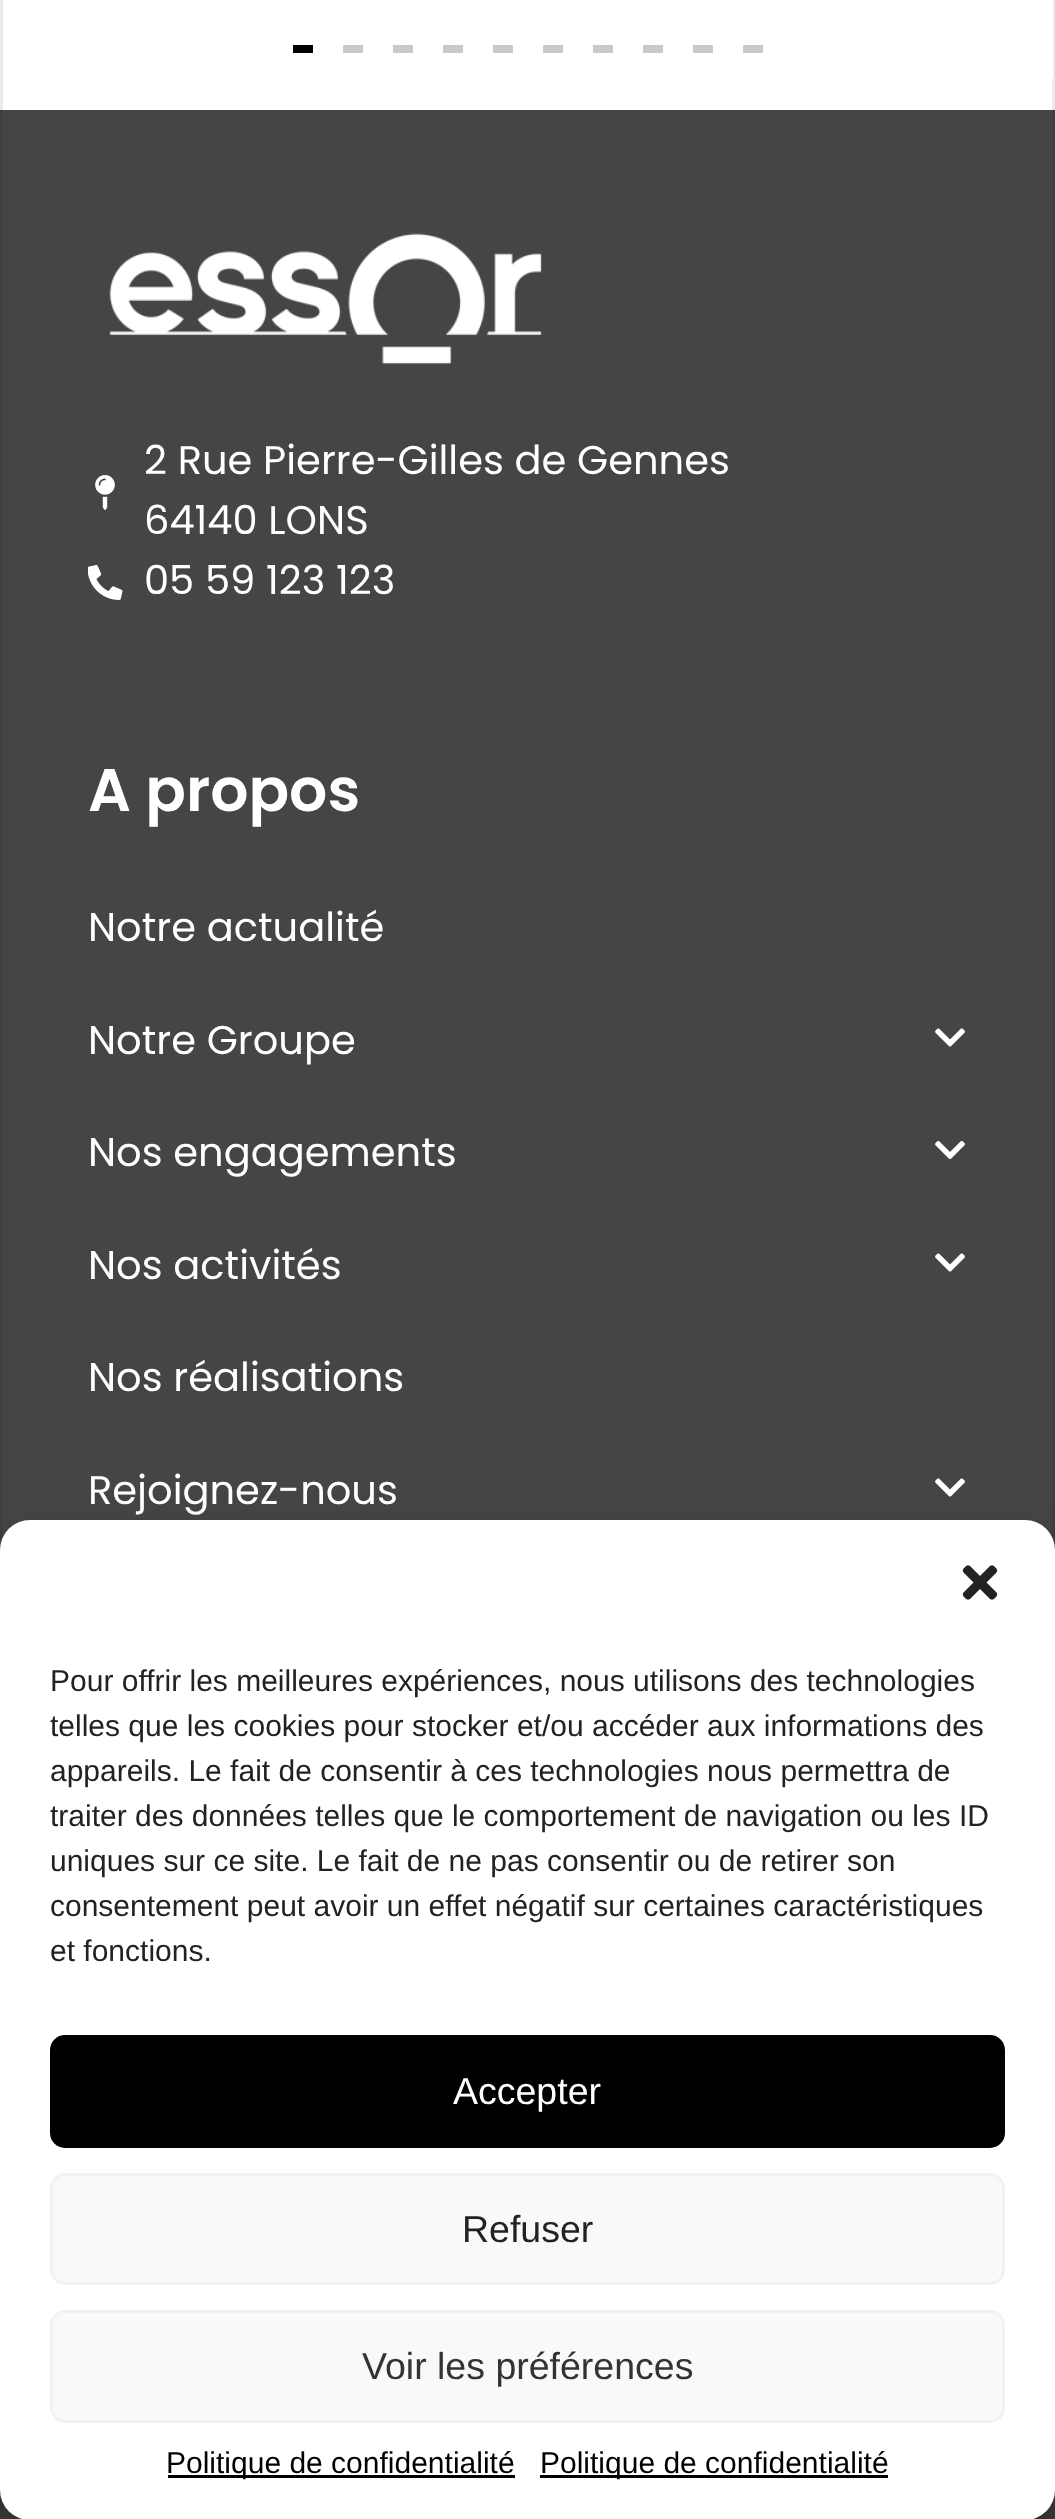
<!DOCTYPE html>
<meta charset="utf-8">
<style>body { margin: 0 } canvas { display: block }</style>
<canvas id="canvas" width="1055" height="2519"></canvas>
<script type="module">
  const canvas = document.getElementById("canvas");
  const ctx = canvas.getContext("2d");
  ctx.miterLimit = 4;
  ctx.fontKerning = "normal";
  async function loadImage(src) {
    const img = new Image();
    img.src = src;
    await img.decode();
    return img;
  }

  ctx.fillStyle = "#ffffff";
  ctx.fillRect(0, 0, 1055, 2519);
  ctx.strokeStyle = "#e9ecef";
  ctx.lineWidth = 3;
  ctx.strokeRect(1.5, -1.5, 1052, 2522);
  ctx.fillRect(1052, 0, 1, 78);
  ctx.fillStyle = "#000000";
  ctx.fillRect(293, 45, 20, 8);
  ctx.fillStyle = "#c9c9c9";
  ctx.fillRect(343, 45, 20, 8);
  ctx.fillRect(393, 45, 20, 8);
  ctx.fillRect(443, 45, 20, 8);
  ctx.fillRect(493, 45, 20, 8);
  ctx.fillRect(543, 45, 20, 8);
  ctx.fillRect(593, 45, 20, 8);
  ctx.fillRect(643, 45, 20, 8);
  ctx.fillRect(693, 45, 20, 8);
  ctx.fillRect(743, 45, 20, 8);
  ctx.fillStyle = "rgba(0, 0, 0, 0.73)";
  ctx.fillRect(0, 110, 1055, 2409);
  ctx.drawImage(await loadImage("img1.png"), 109, 233, 433, 132);
  ctx.drawImage(await loadImage("img2.png"), 95, 475, 20, 35);
  ctx.font = "40px Poppins";
  ctx.fillStyle = "#ffffff";
  ctx.fillText("2 Rue Pierre-Gilles de Gennes", 144, 474);
  ctx.fillText("64140 LONS", 144, 534);
  ctx.drawImage(await loadImage("img3.png"), 88, 565, 35, 35);
  ctx.fillText("05 59 123 123", 144, 594);
  ctx.font = "600 60px Poppins";
  ctx.fillText("A propos", 88, 811);
  ctx.font = "40px Poppins";
  ctx.fillText("Notre actualité", 88, 941);
  ctx.fillText("Notre Groupe", 88, 1054);
  ctx.drawImage(await loadImage("img4.png"), 935, 1028, 30, 19);
  ctx.fillText("Nos engagements", 88, 1166);
  ctx.drawImage(await loadImage("img5.png"), 935, 1141, 30, 18);
  ctx.fillText("Nos activités", 88, 1279);
  ctx.drawImage(await loadImage("img4.png"), 935, 1253, 30, 19);
  ctx.fillText("Nos réalisations", 88, 1391);
  ctx.fillText("Rejoignez-nous", 88, 1504);
  ctx.drawImage(await loadImage("img4.png"), 935, 1478, 30, 19);
  ctx.fillStyle = "rgba(0, 0, 0, 0.23)";
  ctx.filter = "blur(7.5px)";
  ctx.beginPath();
  ctx.roundRect(0, 1535, 1055, 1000, 30);
  ctx.fill();
  ctx.filter = "none";
  ctx.fillStyle = "rgba(0, 0, 0, 0.19)";
  ctx.filter = "blur(25px)";
  ctx.beginPath();
  ctx.roundRect(0, 1545, 1055, 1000, 30);
  ctx.fill();
  ctx.filter = "none";
  ctx.fillStyle = "#ffffff";
  ctx.beginPath();
  ctx.roundRect(0, 1520, 1055, 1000, 30);
  ctx.fill();
  ctx.drawImage(await loadImage("img6.png"), 962, 1565, 36, 35);
  ctx.font = "30px Liberation Sans";
  ctx.fillStyle = "#222222";
  ctx.fillText("Pour offrir les meilleures expériences, nous utilisons des technologies", 50, 1691);
  ctx.fillText("telles que les cookies pour stocker et/ou accéder aux informations des", 50, 1736);
  ctx.fillText("appareils. Le fait de consentir à ces technologies nous permettra de", 50, 1781);
  ctx.fillText("traiter des données telles que le comportement de navigation ou les ID", 50, 1826);
  ctx.fillText("uniques sur ce site. Le fait de ne pas consentir ou de retirer son", 50, 1871);
  ctx.fillText("consentement peut avoir un effet négatif sur certaines caractéristiques", 50, 1916);
  ctx.fillText("et fonctions.", 50, 1961);
  ctx.fillStyle = "#000000";
  ctx.beginPath();
  ctx.roundRect(51.5, 2036.5, 952, 110, 13.5);
  ctx.fill();
  ctx.strokeStyle = "#000000";
  ctx.stroke();
  ctx.font = "37.5px Liberation Sans";
  ctx.fillStyle = "#ffffff";
  ctx.fillText("Accepter", 453, 2104);
  ctx.fillStyle = "#f9f9f9";
  ctx.beginPath();
  ctx.roundRect(51.5, 2174.5, 952, 109, 13.5);
  ctx.fill();
  ctx.strokeStyle = "#f2f2f2";
  ctx.stroke();
  ctx.fillStyle = "#222222";
  ctx.fillText("Refuser", 462, 2242);
  ctx.fillStyle = "#f9f9f9";
  ctx.beginPath();
  ctx.roundRect(51.5, 2311.5, 952, 110, 13.5);
  ctx.fill();
  ctx.stroke();
  ctx.fillStyle = "#333333";
  ctx.fillText("Voir les préférences", 362, 2379);
  ctx.fillStyle = "#000000";
  ctx.fillRect(168, 2475, 347, 3);
  ctx.font = "30px Liberation Sans";
  ctx.fillText("Politique de confidentialité", 166, 2473);
  ctx.fillRect(540, 2475, 348, 3);
  ctx.fillText("Politique de confidentialité", 540, 2473);
</script>
